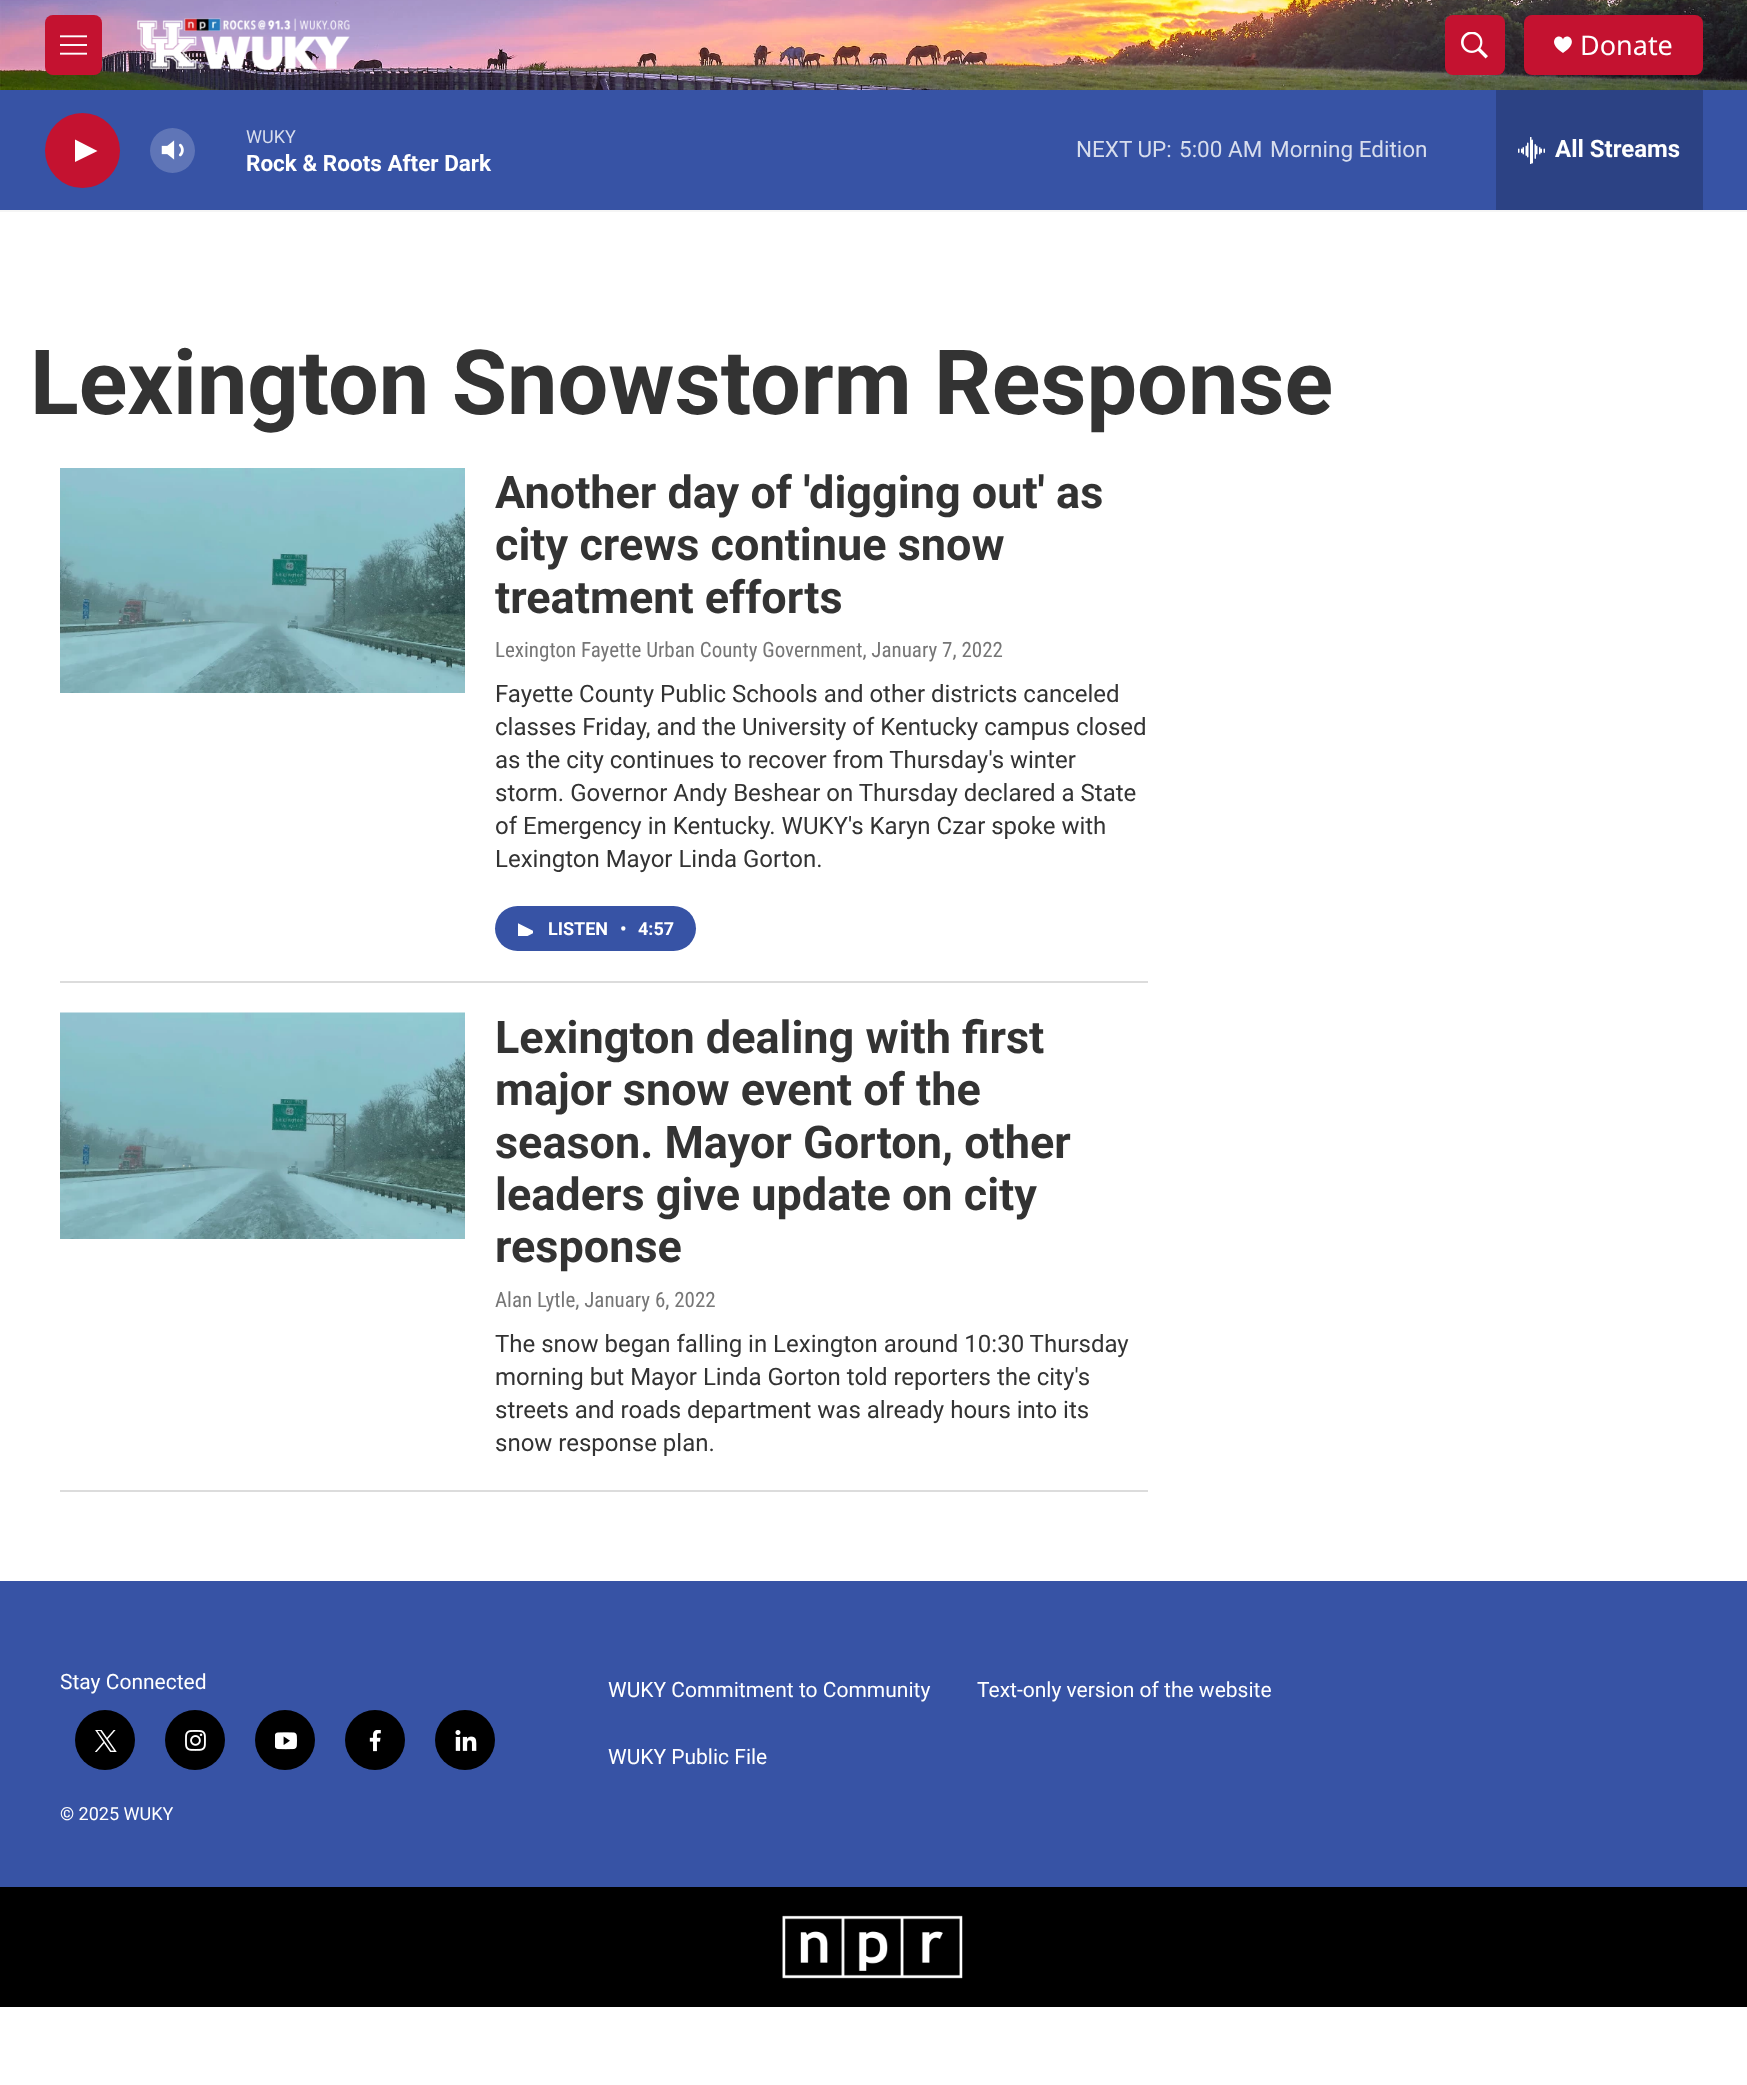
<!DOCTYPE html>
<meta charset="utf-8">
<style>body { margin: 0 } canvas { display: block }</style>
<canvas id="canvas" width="1747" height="2085"></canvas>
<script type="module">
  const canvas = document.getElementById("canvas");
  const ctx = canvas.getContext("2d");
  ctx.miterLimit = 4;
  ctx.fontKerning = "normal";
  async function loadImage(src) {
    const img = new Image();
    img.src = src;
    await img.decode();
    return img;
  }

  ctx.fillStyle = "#ffffff";
  ctx.fillRect(0, 0, 1747, 2085);
  ctx.fillStyle = "#f5f5f5";
  ctx.fillRect(0, 210, 1747, 2);
  ctx.drawImage(await loadImage("img1.png"), 0, 0, 1747, 90);
  ctx.fillStyle = "#c41230";
  ctx.beginPath();
  ctx.roundRect(45, 15, 57, 60, 8);
  ctx.fill();
  ctx.drawImage(await loadImage("img2.png"), 60, 35, 27, 20);
  ctx.drawImage(await loadImage("img3.png"), 137, 18, 213, 53);
  ctx.beginPath();
  ctx.roundRect(1445, 15, 60, 60, 8);
  ctx.fill();
  ctx.drawImage(await loadImage("img4.png"), 1461, 32, 27, 27);
  ctx.beginPath();
  ctx.roundRect(1524, 15, 179, 60, 8);
  ctx.fill();
  ctx.fillStyle = "#ffffff";
  ctx.beginPath();
  ctx.moveTo(1563, 39.5);
  ctx.bezierCurveTo(1560, 31.5, 1544.5, 41.5, 1563, 53);
  ctx.bezierCurveTo(1581.5, 41.5, 1566, 31.5, 1563, 39.5);
  ctx.closePath();
  ctx.fill();
  ctx.font = "27px Noto Sans";
  ctx.fillText("Donate", 1580, 55);
  ctx.fillStyle = "#3753a5";
  ctx.fillRect(0, 90, 1747, 120);
  ctx.fillStyle = "#c41230";
  ctx.beginPath();
  ctx.arc(82.5, 150.5, 37.5, 0, Math.PI * 2);
  ctx.fill();
  ctx.fillStyle = "#ffffff";
  ctx.beginPath();
  ctx.moveTo(75, 139.5);
  ctx.lineTo(97.5, 151);
  ctx.lineTo(75, 162);
  ctx.closePath();
  ctx.fill();
  ctx.drawImage(await loadImage("img5.png"), 161, 140, 23, 20);
  ctx.fillStyle = "rgba(255, 255, 255, 0.2)";
  ctx.beginPath();
  ctx.arc(172.5, 150.5, 22.5, 0, Math.PI * 2);
  ctx.fill();
  ctx.font = "18px Roboto";
  ctx.fillStyle = "#d7dded";
  ctx.fillText("WUKY", 246, 143);
  ctx.font = "bold 22.5px 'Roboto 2'";
  ctx.fillStyle = "#ffffff";
  ctx.fillText("Rock & Roots After Dark", 246, 171);
  ctx.font = "22.5px Roboto";
  ctx.fillStyle = "#d7dded";
  ctx.fillText("NEXT UP:", 1076, 157);
  ctx.fillText("5:00 AM", 1179, 157);
  ctx.fillText("Morning Edition", 1270, 157);
  ctx.fillStyle = "#2c4284";
  ctx.fillRect(1496, 90, 207, 120);
  ctx.drawImage(await loadImage("img6.png"), 1518, 137, 27, 27);
  ctx.font = "bold 24px 'Roboto 2'";
  ctx.fillStyle = "#ffffff";
  ctx.fillText("All Streams", 1555, 157);
  ctx.font = "bold 90px Roboto";
  ctx.fillStyle = "#333333";
  ctx.fillText("Lexington Snowstorm Response", 30, 414);
  ctx.fillStyle = "#dcdcdc";
  ctx.fillRect(60, 981, 1088, 2);
  ctx.drawImage(await loadImage("img7.png"), 60, 468, 405, 225);
  ctx.font = "bold 45px Roboto";
  ctx.fillStyle = "#333333";
  ctx.fillText("Another day of 'digging out' as", 495, 508);
  ctx.fillText("city crews continue snow", 495, 560);
  ctx.fillText("treatment efforts", 495, 613);
  ctx.font = "21px Roboto Condensed";
  ctx.fillStyle = "#767676";
  ctx.fillText("Lexington Fayette Urban County Government, January 7, 2022", 495, 657);
  ctx.font = "24px Roboto";
  ctx.fillStyle = "#333333";
  ctx.fillText("Fayette County Public Schools and other districts canceled", 495, 702);
  ctx.fillText("classes Friday, and the University of Kentucky campus closed", 495, 735);
  ctx.fillText("as the city continues to recover from Thursday's winter", 495, 768);
  ctx.fillText("storm. Governor Andy Beshear on Thursday declared a State", 495, 801);
  ctx.fillText("of Emergency in Kentucky. WUKY's Karyn Czar spoke with", 495, 834);
  ctx.fillText("Lexington Mayor Linda Gorton.", 495, 867);
  ctx.fillStyle = "#3753a5";
  ctx.beginPath();
  ctx.roundRect(495, 906, 201, 45, 22.5);
  ctx.fill();
  ctx.save();
  ctx.beginPath();
  ctx.rect(518, 921, 15, 15);
  ctx.clip();
  ctx.fillStyle = "#ffffff";
  ctx.beginPath();
  ctx.moveTo(517.5, 923);
  ctx.lineTo(535.5, 932);
  ctx.lineTo(517.5, 941);
  ctx.closePath();
  ctx.fill();
  ctx.restore();
  ctx.font = "bold 18px 'Roboto 2'";
  ctx.fillStyle = "#ffffff";
  ctx.fillText("LISTEN", 548, 935);
  ctx.fillText("•", 620, 935);
  ctx.fillText("4:57", 638, 935);
  ctx.fillStyle = "#dcdcdc";
  ctx.fillRect(60, 1490, 1088, 2);
  ctx.drawImage(await loadImage("img8.png"), 60, 1012, 405, 227);
  ctx.font = "bold 45px Roboto";
  ctx.fillStyle = "#333333";
  ctx.fillText("Lexington dealing with first", 495, 1053);
  ctx.fillText("major snow event of the", 495, 1105);
  ctx.fillText("season. Mayor Gorton, other", 495, 1158);
  ctx.fillText("leaders give update on city", 495, 1210);
  ctx.fillText("response", 495, 1262);
  ctx.font = "21px Roboto Condensed";
  ctx.fillStyle = "#767676";
  ctx.fillText("Alan Lytle, January 6, 2022", 495, 1307);
  ctx.font = "24px Roboto";
  ctx.fillStyle = "#333333";
  ctx.fillText("The snow began falling in Lexington around 10:30 Thursday", 495, 1352);
  ctx.fillText("morning but Mayor Linda Gorton told reporters the city's", 495, 1385);
  ctx.fillText("streets and roads department was already hours into its", 495, 1418);
  ctx.fillText("snow response plan.", 495, 1451);
  ctx.fillStyle = "#3753a5";
  ctx.fillRect(0, 1581, 1747, 306);
  ctx.font = "21px Roboto";
  ctx.fillStyle = "#ffffff";
  ctx.fillText("Stay Connected", 60, 1689);
  ctx.fillStyle = "#000000";
  ctx.beginPath();
  ctx.arc(105, 1740, 30, 0, Math.PI * 2);
  ctx.fill();
  ctx.drawImage(await loadImage("img9.png"), 95, 1730, 22, 22);
  ctx.beginPath();
  ctx.arc(195, 1740, 30, 0, Math.PI * 2);
  ctx.fill();
  ctx.drawImage(await loadImage("img10.png"), 185, 1730, 21, 21);
  ctx.beginPath();
  ctx.arc(285, 1740, 30, 0, Math.PI * 2);
  ctx.fill();
  ctx.drawImage(await loadImage("img11.png"), 275, 1732, 22, 18);
  ctx.beginPath();
  ctx.arc(375, 1740, 30, 0, Math.PI * 2);
  ctx.fill();
  ctx.drawImage(await loadImage("img12.png"), 369, 1730, 12, 22);
  ctx.beginPath();
  ctx.arc(465, 1740, 30, 0, Math.PI * 2);
  ctx.fill();
  ctx.drawImage(await loadImage("img13.png"), 455, 1730, 22, 21);
  ctx.font = "18px Roboto";
  ctx.fillStyle = "#ffffff";
  ctx.fillText("© 2025 WUKY", 60, 1820);
  ctx.font = "21px Roboto";
  ctx.fillText("WUKY Commitment to Community", 608, 1697);
  ctx.fillText("Text-only version of the website", 977, 1697);
  ctx.fillText("WUKY Public File", 608, 1764);
  ctx.fillStyle = "#000000";
  ctx.fillRect(0, 1887, 1747, 120);
  ctx.drawImage(await loadImage("img14.png"), 782, 1915, 181, 64);
</script>
